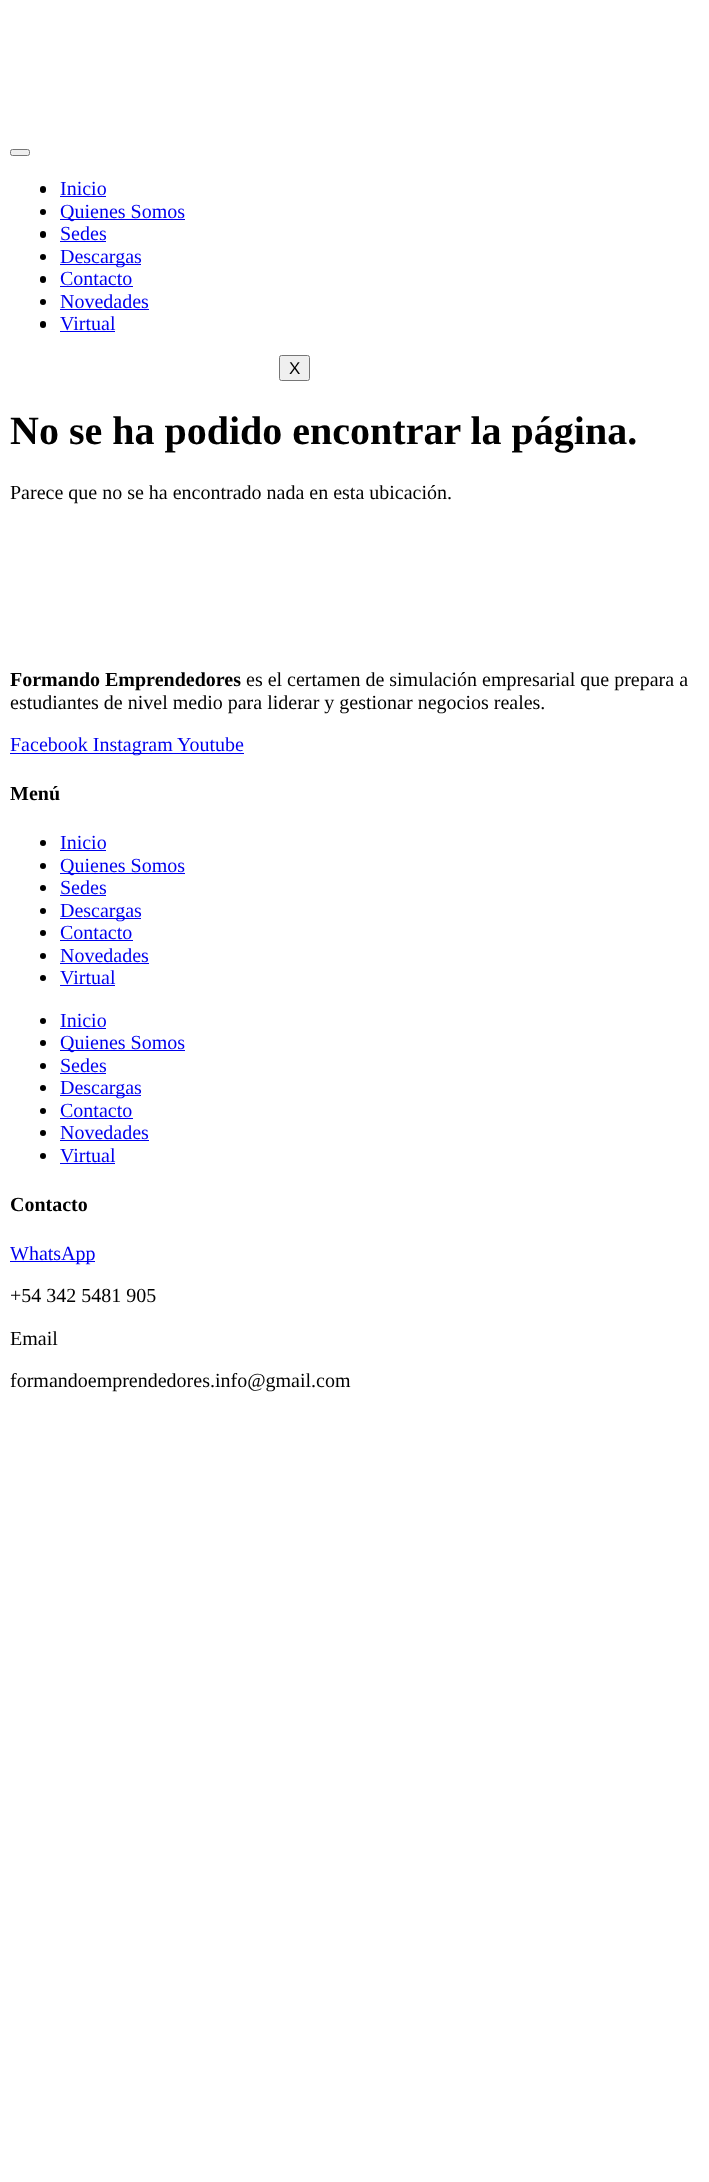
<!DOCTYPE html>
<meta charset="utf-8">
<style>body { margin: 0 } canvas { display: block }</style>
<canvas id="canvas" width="709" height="2182"></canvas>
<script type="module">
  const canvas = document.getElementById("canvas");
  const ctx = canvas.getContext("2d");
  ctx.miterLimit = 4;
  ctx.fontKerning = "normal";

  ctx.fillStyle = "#ffffff";
  ctx.fillRect(0, 0, 709, 2182);
  ctx.fillStyle = "#efefef";
  ctx.beginPath();
  ctx.roundRect(10.5, 149.5, 19, 6, 2);
  ctx.fill();
  ctx.strokeStyle = "#767676";
  ctx.stroke();
  ctx.fillStyle = "#000000";
  ctx.beginPath();
  ctx.roundRect(40, 186, 6, 7, 3);
  ctx.fill();
  ctx.font = "20px Liberation Serif";
  ctx.fillStyle = "#0000ee";
  ctx.fillText("Inicio", 60, 195);
  ctx.fillRect(60, 196, 46, 1);
  ctx.fillStyle = "#000000";
  ctx.beginPath();
  ctx.arc(43, 212, 3, 0, Math.PI * 2);
  ctx.fill();
  ctx.fillStyle = "#0000ee";
  ctx.fillRect(60, 219, 125, 1);
  ctx.fillText("Quienes Somos", 60, 218);
  ctx.fillStyle = "#000000";
  ctx.beginPath();
  ctx.roundRect(40, 231, 6, 7, 3);
  ctx.fill();
  ctx.fillStyle = "#0000ee";
  ctx.fillText("Sedes", 60, 240);
  ctx.fillRect(60, 241, 46, 1);
  ctx.fillStyle = "#000000";
  ctx.beginPath();
  ctx.arc(43, 257, 3, 0, Math.PI * 2);
  ctx.fill();
  ctx.fillStyle = "#0000ee";
  ctx.fillRect(60, 264, 81, 1);
  ctx.fillText("Descargas", 60, 263);
  ctx.fillStyle = "#000000";
  ctx.beginPath();
  ctx.roundRect(40, 276, 6, 7, 3);
  ctx.fill();
  ctx.fillStyle = "#0000ee";
  ctx.fillText("Contacto", 60, 285);
  ctx.fillRect(60, 286, 73, 1);
  ctx.fillStyle = "#000000";
  ctx.beginPath();
  ctx.arc(43, 302, 3, 0, Math.PI * 2);
  ctx.fill();
  ctx.fillStyle = "#0000ee";
  ctx.fillText("Novedades", 60, 308);
  ctx.fillRect(60, 309, 89, 1);
  ctx.fillStyle = "#000000";
  ctx.beginPath();
  ctx.roundRect(40, 321, 6, 7, 3);
  ctx.fill();
  ctx.fillStyle = "#0000ee";
  ctx.fillText("Virtual", 60, 330);
  ctx.fillRect(60, 331, 55, 1);
  ctx.fillStyle = "#efefef";
  ctx.beginPath();
  ctx.roundRect(279.5, 355.5, 30, 25, 2);
  ctx.fill();
  ctx.stroke();
  ctx.font = "17px Liberation Sans";
  ctx.fillStyle = "#000000";
  ctx.fillText("X", 289, 374);
  ctx.font = "bold 40px Liberation Serif";
  ctx.fillText("No se ha podido encontrar la página.", 10, 444);
  ctx.font = "20px Liberation Serif";
  ctx.fillText("Parece que no se ha encontrado nada en esta ubicación.", 10, 499);
  ctx.font = "bold 20px Liberation Serif";
  ctx.fillText("Formando Emprendedores", 10, 686);
  ctx.font = "20px Liberation Serif";
  ctx.fillText("es el certamen de simulación empresarial que prepara a", 246, 686);
  ctx.fillText("estudiantes de nivel medio para liderar y gestionar negocios reales.", 10, 709);
  ctx.fillStyle = "#0000ee";
  ctx.fillRect(10, 753, 234, 1);
  ctx.fillText("Facebook Instagram", 10, 751);
  ctx.fillText("Youtube", 177, 751);
  ctx.font = "bold 20px Liberation Serif";
  ctx.fillStyle = "#000000";
  ctx.fillText("Menú", 10, 800);
  ctx.beginPath();
  ctx.arc(43, 843, 3, 0, Math.PI * 2);
  ctx.fill();
  ctx.font = "20px Liberation Serif";
  ctx.fillStyle = "#0000ee";
  ctx.fillText("Inicio", 60, 849);
  ctx.fillRect(60, 850, 46, 1);
  ctx.fillStyle = "#000000";
  ctx.beginPath();
  ctx.arc(43, 866, 3, 0, Math.PI * 2);
  ctx.fill();
  ctx.fillStyle = "#0000ee";
  ctx.fillRect(60, 873, 125, 1);
  ctx.fillText("Quienes Somos", 60, 872);
  ctx.fillStyle = "#000000";
  ctx.beginPath();
  ctx.arc(43, 888, 3, 0, Math.PI * 2);
  ctx.fill();
  ctx.fillStyle = "#0000ee";
  ctx.fillText("Sedes", 60, 894);
  ctx.fillRect(60, 895, 46, 1);
  ctx.fillStyle = "#000000";
  ctx.beginPath();
  ctx.arc(43, 911, 3, 0, Math.PI * 2);
  ctx.fill();
  ctx.fillStyle = "#0000ee";
  ctx.fillRect(60, 918, 81, 1);
  ctx.fillText("Descargas", 60, 917);
  ctx.fillStyle = "#000000";
  ctx.beginPath();
  ctx.arc(43, 933, 3, 0, Math.PI * 2);
  ctx.fill();
  ctx.fillStyle = "#0000ee";
  ctx.fillText("Contacto", 60, 939);
  ctx.fillRect(60, 940, 73, 1);
  ctx.fillStyle = "#000000";
  ctx.beginPath();
  ctx.arc(43, 956, 3, 0, Math.PI * 2);
  ctx.fill();
  ctx.fillStyle = "#0000ee";
  ctx.fillText("Novedades", 60, 962);
  ctx.fillRect(60, 963, 89, 1);
  ctx.fillStyle = "#000000";
  ctx.beginPath();
  ctx.arc(43, 978, 3, 0, Math.PI * 2);
  ctx.fill();
  ctx.fillStyle = "#0000ee";
  ctx.fillText("Virtual", 60, 984);
  ctx.fillRect(60, 985, 55, 1);
  ctx.fillStyle = "#000000";
  ctx.beginPath();
  ctx.arc(43, 1021, 3, 0, Math.PI * 2);
  ctx.fill();
  ctx.fillStyle = "#0000ee";
  ctx.fillText("Inicio", 60, 1027);
  ctx.fillRect(60, 1028, 46, 1);
  ctx.fillStyle = "#000000";
  ctx.beginPath();
  ctx.arc(43, 1043, 3, 0, Math.PI * 2);
  ctx.fill();
  ctx.fillStyle = "#0000ee";
  ctx.fillRect(60, 1050, 125, 1);
  ctx.fillText("Quienes Somos", 60, 1049);
  ctx.fillStyle = "#000000";
  ctx.beginPath();
  ctx.arc(43, 1066, 3, 0, Math.PI * 2);
  ctx.fill();
  ctx.fillStyle = "#0000ee";
  ctx.fillText("Sedes", 60, 1072);
  ctx.fillRect(60, 1073, 46, 1);
  ctx.fillStyle = "#000000";
  ctx.beginPath();
  ctx.arc(43, 1088, 3, 0, Math.PI * 2);
  ctx.fill();
  ctx.fillStyle = "#0000ee";
  ctx.fillRect(60, 1095, 81, 1);
  ctx.fillText("Descargas", 60, 1094);
  ctx.fillStyle = "#000000";
  ctx.beginPath();
  ctx.arc(43, 1111, 3, 0, Math.PI * 2);
  ctx.fill();
  ctx.fillStyle = "#0000ee";
  ctx.fillText("Contacto", 60, 1117);
  ctx.fillRect(60, 1118, 73, 1);
  ctx.fillStyle = "#000000";
  ctx.beginPath();
  ctx.arc(43, 1133, 3, 0, Math.PI * 2);
  ctx.fill();
  ctx.fillStyle = "#0000ee";
  ctx.fillText("Novedades", 60, 1139);
  ctx.fillRect(60, 1140, 89, 1);
  ctx.fillStyle = "#000000";
  ctx.beginPath();
  ctx.arc(43, 1156, 3, 0, Math.PI * 2);
  ctx.fill();
  ctx.fillStyle = "#0000ee";
  ctx.fillText("Virtual", 60, 1162);
  ctx.fillRect(60, 1163, 55, 1);
  ctx.font = "bold 20px Liberation Serif";
  ctx.fillStyle = "#000000";
  ctx.fillText("Contacto", 10, 1211);
  ctx.fillStyle = "#0000ee";
  ctx.fillRect(10, 1261, 85, 1);
  ctx.font = "20px Liberation Serif";
  ctx.fillText("WhatsApp", 10, 1260);
  ctx.fillStyle = "#000000";
  ctx.fillText("+54 342 5481 905", 10, 1302);
  ctx.fillText("Email", 10, 1345);
  ctx.fillText("formandoemprendedores.info@gmail.com", 10, 1387);
</script>
